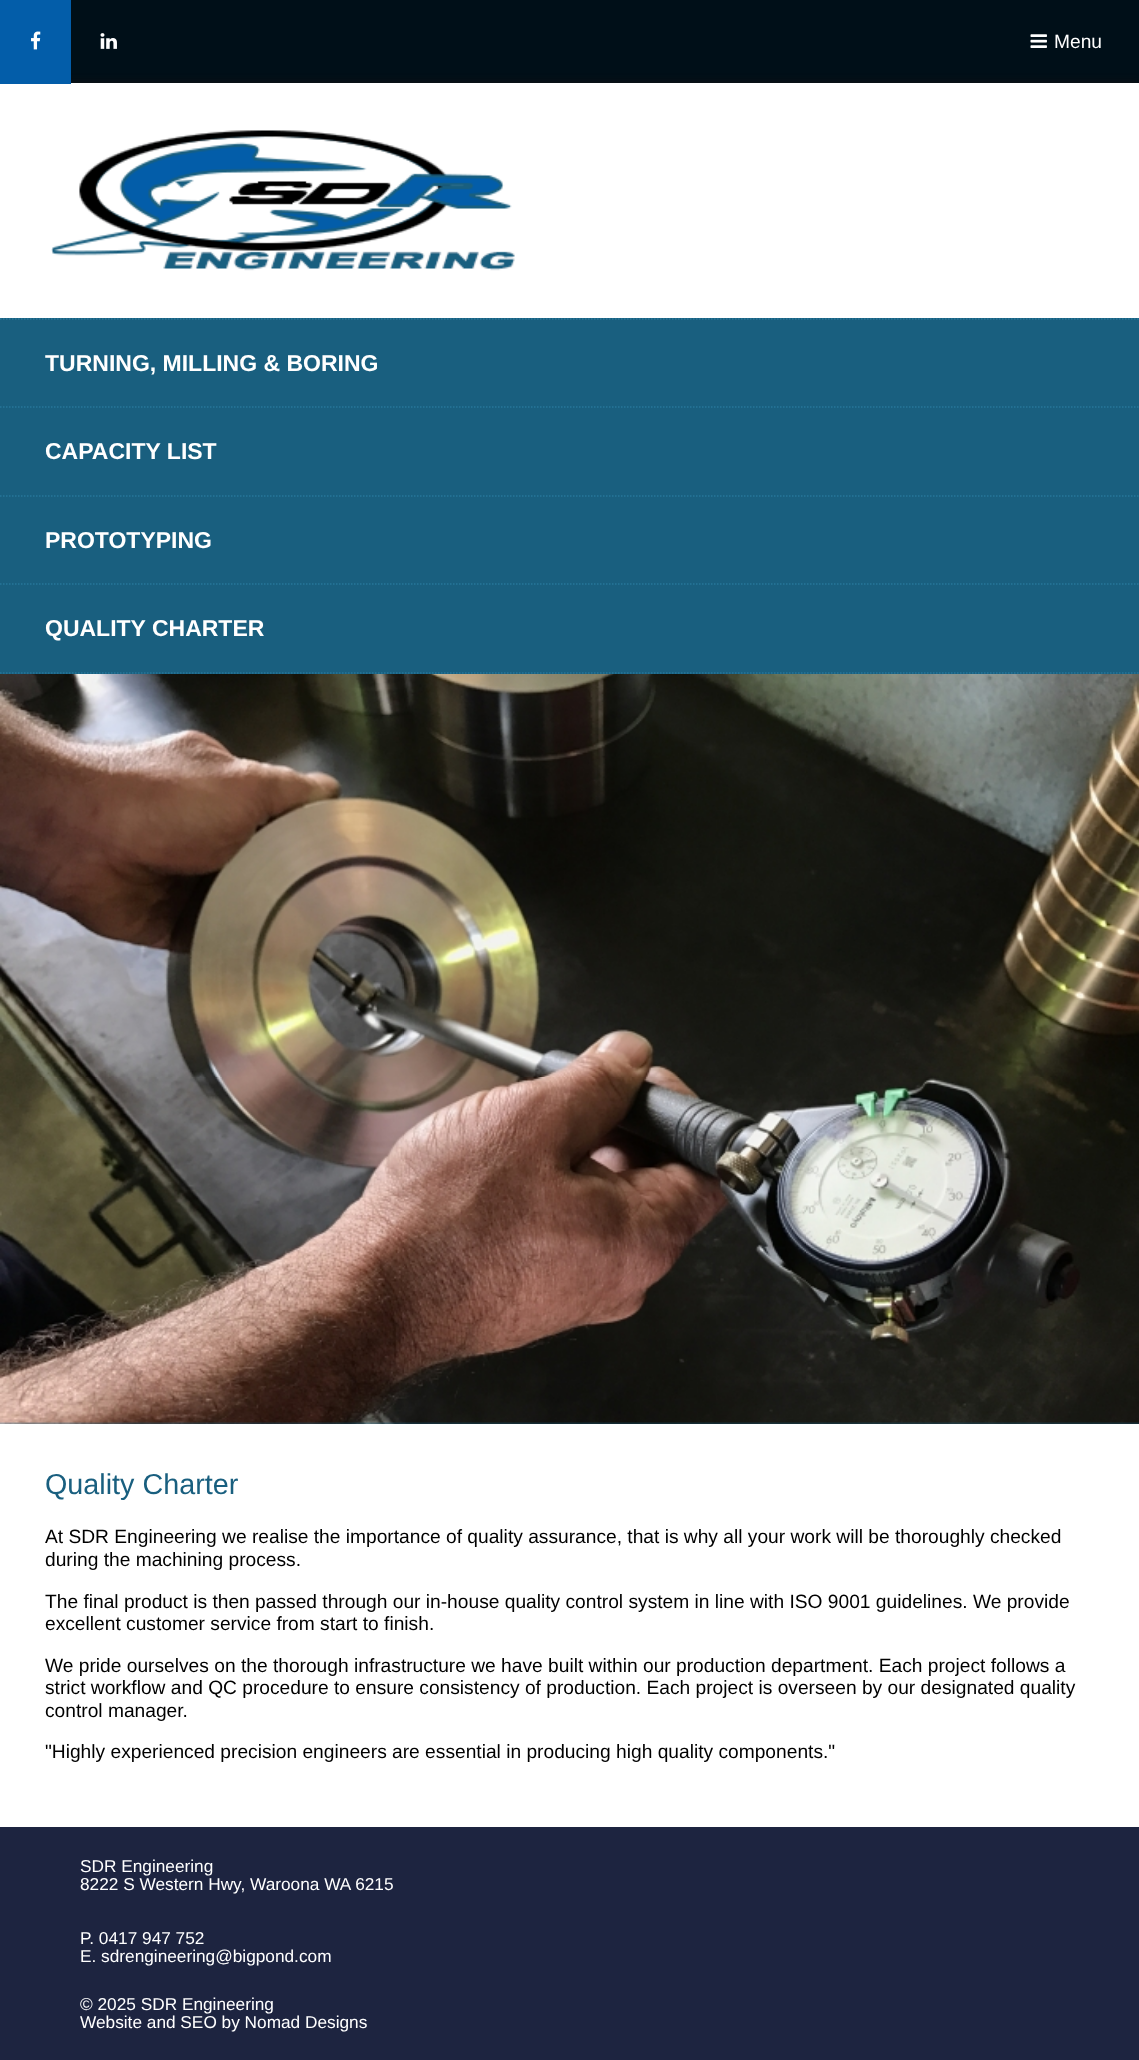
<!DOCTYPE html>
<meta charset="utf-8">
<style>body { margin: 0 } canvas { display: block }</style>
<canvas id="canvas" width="1139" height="2060"></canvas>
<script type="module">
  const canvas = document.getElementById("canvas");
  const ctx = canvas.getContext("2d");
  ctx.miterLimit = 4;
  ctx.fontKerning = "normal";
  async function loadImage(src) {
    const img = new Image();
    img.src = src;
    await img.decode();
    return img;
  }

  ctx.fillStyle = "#000f18";
  ctx.fillRect(0, 0, 1139, 2060);
  ctx.fillStyle = "#111111";
  ctx.filter = "blur(4px)";
  ctx.beginPath();
  ctx.rect(0, 83, 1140, 1744);
  ctx.fill();
  ctx.filter = "none";
  ctx.fillStyle = "#ffffff";
  ctx.fillRect(0, 83, 1139, 235);
  ctx.fillStyle = "#035da9";
  ctx.fillRect(0, 0, 71, 84);
  ctx.drawImage(await loadImage("img1.png"), 31, 31, 10, 19);
  ctx.drawImage(await loadImage("img2.png"), 100, 33, 17, 16);
  ctx.drawImage(await loadImage("img3.png"), 1030, 34, 17, 14);
  ctx.font = "19.2px Liberation Sans";
  ctx.fillStyle = "#ffffff";
  ctx.fillText("Menu", 1054, 48);
  ctx.fillRect(0, 1424, 1139, 403);
  ctx.fillStyle = "#195f7f";
  ctx.fillRect(0, 318, 1139, 1106);
  ctx.drawImage(await loadImage("img4.png"), 51, 130, 464, 141);
  ctx.beginPath();
  ctx.moveTo(0, 673);
  ctx.lineTo(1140, 673);
  ctx.strokeStyle = "#27779b";
  ctx.lineWidth = 1.5;
  ctx.setLineDash([1.5, 1.5]);
  ctx.stroke();
  ctx.beginPath();
  ctx.moveTo(0, 319);
  ctx.lineTo(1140, 319);
  ctx.stroke();
  ctx.font = "bold 23px Liberation Sans";
  ctx.fillStyle = "#ffffff";
  ctx.fillText("TURNING, MILLING & BORING", 45, 371);
  ctx.beginPath();
  ctx.moveTo(0, 407);
  ctx.lineTo(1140, 407);
  ctx.stroke();
  ctx.fillText("CAPACITY LIST", 45, 459);
  ctx.beginPath();
  ctx.moveTo(0, 496);
  ctx.lineTo(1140, 496);
  ctx.stroke();
  ctx.fillText("PROTOTYPING", 45, 548);
  ctx.beginPath();
  ctx.moveTo(0, 584);
  ctx.lineTo(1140, 584);
  ctx.stroke();
  ctx.fillText("QUALITY CHARTER", 45, 636);
  ctx.drawImage(await loadImage("img5.png"), 0, 674, 1139, 750);
  ctx.font = "28.75px Liberation Sans";
  ctx.fillStyle = "#195f7f";
  ctx.fillText("Quality Charter", 45, 1494);
  ctx.font = "19.2px Liberation Sans";
  ctx.fillStyle = "#000000";
  ctx.fillText("At SDR Engineering we realise the importance of quality assurance, that is why all your work will be thoroughly checked", 45, 1543);
  ctx.fillText("during the machining process.", 45, 1566);
  ctx.fillText("The final product is then passed through our in-house quality control system in line with ISO 9001 guidelines. We provide", 45, 1608);
  ctx.fillText("excellent customer service from start to finish.", 45, 1630);
  ctx.fillText("We pride ourselves on the thorough infrastructure we have built within our production department. Each project follows a", 45, 1672);
  ctx.fillText("strict workflow and QC procedure to ensure consistency of production. Each project is overseen by our designated quality", 45, 1694);
  ctx.fillText("control manager.", 45, 1717);
  ctx.fillText("\"Highly experienced precision engineers are essential in producing high quality components.\"", 45, 1758);
  ctx.fillStyle = "#1d2440";
  ctx.fillRect(0, 1827, 1139, 233);
  ctx.font = "17.25px Liberation Sans";
  ctx.fillStyle = "#ffffff";
  ctx.fillText("SDR Engineering", 80, 1872);
  ctx.fillText("8222 S Western Hwy, Waroona WA 6215", 80, 1890);
  ctx.fillText("P. 0417 947 752", 80, 1944);
  ctx.fillText("E. sdrengineering@bigpond.com", 80, 1962);
  ctx.fillText("© 2025 SDR Engineering", 80, 2010);
  ctx.fillText("Website and SEO by Nomad Designs", 80, 2028);
</script>
